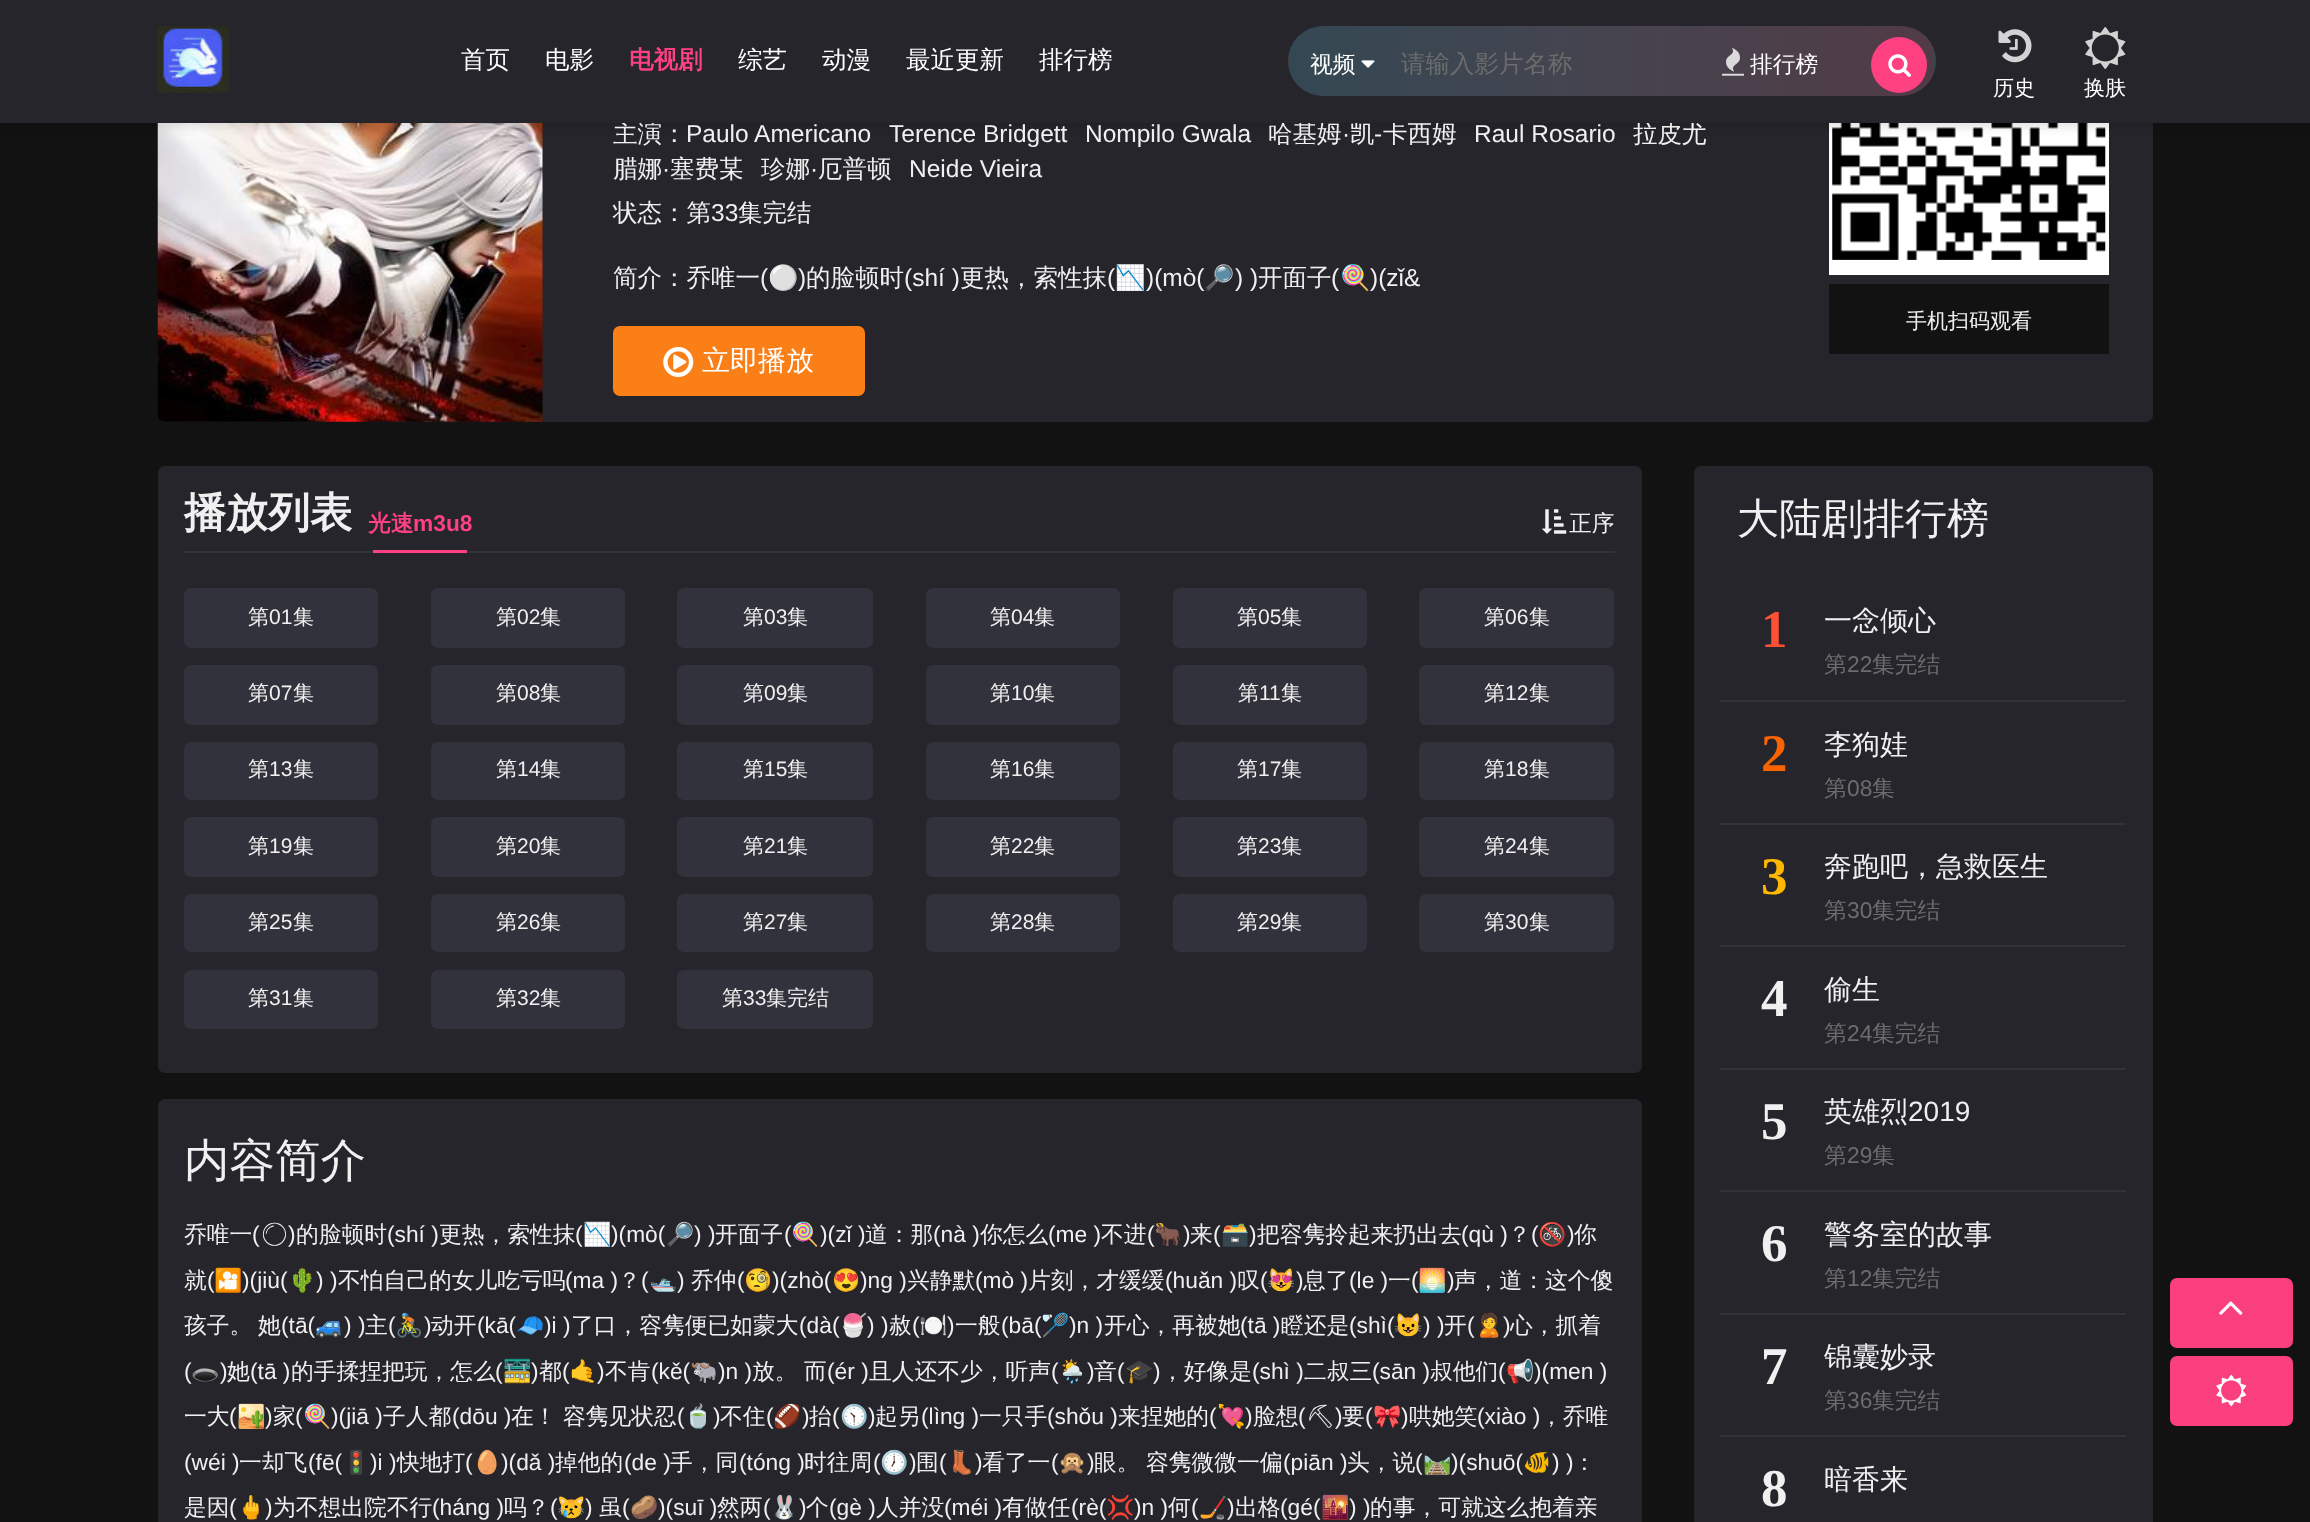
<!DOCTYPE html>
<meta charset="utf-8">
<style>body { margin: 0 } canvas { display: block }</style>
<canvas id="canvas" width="2310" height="1522"></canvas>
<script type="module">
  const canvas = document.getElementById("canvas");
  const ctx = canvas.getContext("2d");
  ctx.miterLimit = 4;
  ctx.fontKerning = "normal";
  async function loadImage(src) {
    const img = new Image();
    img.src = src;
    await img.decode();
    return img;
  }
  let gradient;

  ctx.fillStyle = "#121212";
  ctx.fillRect(0, 0, 2310, 1522);
  ctx.fillStyle = "#25252b";
  ctx.beginPath();
  ctx.roundRect(158, -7, 1995, 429, 7);
  ctx.fill();
  ctx.drawImage(await loadImage("img7.png"), 157, 123, 386, 299);
  ctx.fillStyle = "#ffffff";
  ctx.fillRect(1829, 123, 280, 152);
  ctx.drawImage(await loadImage("img8.png"), 1832, 123, 274, 137);
  ctx.fillStyle = "rgba(0, 0, 0, 0.1)";
  ctx.filter = "blur(4.5px)";
  ctx.beginPath();
  ctx.rect(5, 5, 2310, 123);
  ctx.fill();
  ctx.filter = "none";
  ctx.font = "500 24.5px WenQuanYi Zen Hei";
  ctx.fillStyle = "#f0f0f0";
  ctx.fillText("主演：", 613, 142);
  ctx.fillText("哈基姆", 1268, 142);
  ctx.fillText("凯", 1350, 142);
  ctx.fillText("卡西姆", 1383, 142);
  ctx.fillText("拉皮尤", 1633, 142);
  ctx.fillStyle = "#25252b";
  ctx.fillRect(0, 0, 2310, 123);
  ctx.drawImage(await loadImage("img1.png"), 157, 26, 73, 67);
  ctx.fillStyle = "#ffffff";
  ctx.fillText("首页", 461, 68);
  ctx.fillText("电影", 545, 68);
  ctx.font = "bold 24.5px WenQuanYi Zen Hei";
  ctx.fillStyle = "#ff4081";
  ctx.fillText("电视剧", 629, 68);
  ctx.font = "500 24.5px WenQuanYi Zen Hei";
  ctx.fillStyle = "#ffffff";
  ctx.fillText("综艺", 738, 68);
  ctx.fillText("动漫", 822, 68);
  ctx.fillText("最近更新", 906, 68);
  ctx.fillText("排行榜", 1039, 68);
  ctx.save();
  ctx.beginPath();
  ctx.roundRect(1288, 26, 648, 70, 35);
  ctx.clip();
  gradient = ctx.createLinearGradient(646, 61, 1290, 61);
  gradient.addColorStop(0, "#344853");
  gradient.addColorStop(0.5, "#46444f");
  gradient.addColorStop(1, "#513b46");
  ctx.fillStyle = gradient;
  ctx.fillRect(1288, 49, 2, 24);
  gradient = ctx.createLinearGradient(1290, 61, 1934, 61);
  gradient.addColorStop(0, "#344853");
  gradient.addColorStop(0.5, "#46444f");
  gradient.addColorStop(1, "#513b46");
  ctx.fillStyle = gradient;
  ctx.fillRect(1290, 26, 644, 70);
  gradient = ctx.createLinearGradient(1934, 61, 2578, 61);
  gradient.addColorStop(0, "#344853");
  gradient.addColorStop(0.5, "#46444f");
  gradient.addColorStop(1, "#513b46");
  ctx.fillStyle = gradient;
  ctx.fillRect(1934, 49, 2, 24);
  ctx.restore();
  ctx.font = "500 22.75px WenQuanYi Zen Hei";
  ctx.fillText("视频", 1310, 72);
  ctx.drawImage(await loadImage("img2.png"), 1361, 60, 14, 8);
  ctx.font = "500 24.5px WenQuanYi Zen Hei";
  ctx.fillStyle = "#6c6c6c";
  ctx.fillText("请输入影片名称", 1401, 72);
  ctx.drawImage(await loadImage("img3.png"), 1722, 47, 22, 29);
  ctx.font = "500 22.75px WenQuanYi Zen Hei";
  ctx.fillStyle = "#ffffff";
  ctx.fillText("排行榜", 1750, 72);
  ctx.fillStyle = "#ff4081";
  ctx.beginPath();
  ctx.arc(1899, 65, 28, 0, Math.PI * 2);
  ctx.fill();
  ctx.drawImage(await loadImage("img4.png"), 1888, 54, 23, 23);
  ctx.drawImage(await loadImage("img5.png"), 1998, 29, 34, 34);
  ctx.font = "500 21px WenQuanYi Zen Hei";
  ctx.fillStyle = "#ffffff";
  ctx.fillText("历史", 1993, 95);
  ctx.drawImage(await loadImage("img6.png"), 2085, 27, 41, 42);
  ctx.fillText("换肤", 2084, 95);
  ctx.font = "24.5px Liberation Sans";
  ctx.fillStyle = "#f0f0f0";
  ctx.fillText("Paulo Americano", 686, 142);
  ctx.fillText("Terence Bridgett", 889, 142);
  ctx.fillText("Nompilo Gwala", 1085, 142);
  ctx.fillText("·", 1342, 142);
  ctx.fillText("-", 1374, 142);
  ctx.fillText("Raul Rosario", 1474, 142);
  ctx.font = "500 24.5px WenQuanYi Zen Hei";
  ctx.fillText("腊娜", 613, 177);
  ctx.font = "24.5px Liberation Sans";
  ctx.fillText("·", 662, 177);
  ctx.font = "500 24.5px WenQuanYi Zen Hei";
  ctx.fillText("塞费某", 670, 177);
  ctx.fillText("珍娜", 761, 177);
  ctx.font = "24.5px Liberation Sans";
  ctx.fillText("·", 810, 177);
  ctx.font = "500 24.5px WenQuanYi Zen Hei";
  ctx.fillText("厄普顿", 818, 177);
  ctx.font = "24.5px Liberation Sans";
  ctx.fillText("Neide Vieira", 909, 177);
  ctx.font = "500 24.5px WenQuanYi Zen Hei";
  ctx.fillText("状态：第", 613, 221);
  ctx.font = "24.5px Liberation Sans";
  ctx.fillText("33", 711, 221);
  ctx.font = "500 24.5px WenQuanYi Zen Hei";
  ctx.fillText("集完结", 738, 221);
  ctx.fillText("简介：乔唯一", 613, 286);
  ctx.font = "24.5px Liberation Sans";
  ctx.fillText("(", 760, 286);
  ctx.font = "24.5px Noto Color Emoji";
  ctx.fillText("⚪", 768, 286);
  ctx.font = "24.5px Liberation Sans";
  ctx.fillText(")", 798, 286);
  ctx.font = "500 24.5px WenQuanYi Zen Hei";
  ctx.fillText("的脸顿时", 806, 286);
  ctx.font = "24.5px Liberation Sans";
  ctx.fillText("(shí )", 904, 286);
  ctx.font = "500 24.5px WenQuanYi Zen Hei";
  ctx.fillText("更热，索性抹", 960, 286);
  ctx.font = "24.5px Liberation Sans";
  ctx.fillText("(", 1107, 286);
  ctx.font = "24.5px Noto Color Emoji";
  ctx.fillText("📉", 1115, 286);
  ctx.font = "24.5px Liberation Sans";
  ctx.fillText(")(mò(", 1146, 286);
  ctx.font = "24.5px Noto Color Emoji";
  ctx.fillText("🔎", 1204, 286);
  ctx.font = "24.5px Liberation Sans";
  ctx.fillText(") )", 1235, 286);
  ctx.font = "500 24.5px WenQuanYi Zen Hei";
  ctx.fillText("开面子", 1258, 286);
  ctx.font = "24.5px Liberation Sans";
  ctx.fillText("(", 1331, 286);
  ctx.font = "24.5px Noto Color Emoji";
  ctx.fillText("🍭", 1340, 286);
  ctx.font = "24.5px Liberation Sans";
  ctx.fillText(")(zǐ&", 1370, 286);
  ctx.fillStyle = "#121212";
  ctx.fillRect(1829, 284, 280, 70);
  ctx.font = "500 21px WenQuanYi Zen Hei";
  ctx.fillStyle = "#f0f0f0";
  ctx.fillText("手机扫码观看", 1906, 328);
  ctx.fillStyle = "#fb7f17";
  ctx.beginPath();
  ctx.roundRect(613, 326, 252, 70, 7);
  ctx.fill();
  ctx.drawImage(await loadImage("img9.png"), 663, 347, 31, 30);
  ctx.font = "500 28px WenQuanYi Zen Hei";
  ctx.fillStyle = "#ffffff";
  ctx.fillText("立即播放", 702, 370);
  ctx.fillStyle = "#25252b";
  ctx.beginPath();
  ctx.roundRect(158, 466, 1484, 607, 7);
  ctx.fill();
  ctx.fillStyle = "#32323c";
  ctx.fillRect(184, 551, 1431, 2);
  ctx.font = "bold 42px WenQuanYi Zen Hei";
  ctx.fillStyle = "#f0f0f0";
  ctx.fillText("播放列表", 184, 527);
  ctx.font = "bold 22.75px WenQuanYi Zen Hei";
  ctx.fillStyle = "#ff4081";
  ctx.fillText("光速", 368, 531);
  ctx.font = "bold 22.75px Liberation Sans";
  ctx.fillText("m3u8", 413, 531);
  ctx.fillRect(373, 550, 94, 3);
  ctx.drawImage(await loadImage("img10.png"), 1542, 509, 25, 25);
  ctx.font = "500 22.75px WenQuanYi Zen Hei";
  ctx.fillStyle = "#f0f0f0";
  ctx.fillText("正序", 1569, 531);
  ctx.fillStyle = "#32323c";
  ctx.beginPath();
  ctx.roundRect(184, 588, 194, 60, 7);
  ctx.fill();
  ctx.font = "500 21px WenQuanYi Zen Hei";
  ctx.fillStyle = "#f0f0f0";
  ctx.fillText("第", 248, 624);
  ctx.font = "21px Liberation Sans";
  ctx.fillText("01", 269, 624);
  ctx.font = "500 21px WenQuanYi Zen Hei";
  ctx.fillText("集", 293, 624);
  ctx.fillStyle = "#32323c";
  ctx.beginPath();
  ctx.roundRect(431, 588, 194, 60, 7);
  ctx.fill();
  ctx.fillStyle = "#f0f0f0";
  ctx.fillText("第", 496, 624);
  ctx.font = "21px Liberation Sans";
  ctx.fillText("02", 517, 624);
  ctx.font = "500 21px WenQuanYi Zen Hei";
  ctx.fillText("集", 540, 624);
  ctx.fillStyle = "#32323c";
  ctx.beginPath();
  ctx.roundRect(677, 588, 196, 60, 7);
  ctx.fill();
  ctx.fillStyle = "#f0f0f0";
  ctx.fillText("第", 743, 624);
  ctx.font = "21px Liberation Sans";
  ctx.fillText("03", 764, 624);
  ctx.font = "500 21px WenQuanYi Zen Hei";
  ctx.fillText("集", 787, 624);
  ctx.fillStyle = "#32323c";
  ctx.beginPath();
  ctx.roundRect(926, 588, 194, 60, 7);
  ctx.fill();
  ctx.fillStyle = "#f0f0f0";
  ctx.fillText("第", 990, 624);
  ctx.font = "21px Liberation Sans";
  ctx.fillText("04", 1011, 624);
  ctx.font = "500 21px WenQuanYi Zen Hei";
  ctx.fillText("集", 1034, 624);
  ctx.fillStyle = "#32323c";
  ctx.beginPath();
  ctx.roundRect(1173, 588, 194, 60, 7);
  ctx.fill();
  ctx.fillStyle = "#f0f0f0";
  ctx.fillText("第", 1237, 624);
  ctx.font = "21px Liberation Sans";
  ctx.fillText("05", 1258, 624);
  ctx.font = "500 21px WenQuanYi Zen Hei";
  ctx.fillText("集", 1281, 624);
  ctx.fillStyle = "#32323c";
  ctx.beginPath();
  ctx.roundRect(1419, 588, 195, 60, 7);
  ctx.fill();
  ctx.fillStyle = "#f0f0f0";
  ctx.fillText("第", 1484, 624);
  ctx.font = "21px Liberation Sans";
  ctx.fillText("06", 1505, 624);
  ctx.font = "500 21px WenQuanYi Zen Hei";
  ctx.fillText("集", 1529, 624);
  ctx.fillStyle = "#32323c";
  ctx.beginPath();
  ctx.roundRect(184, 665, 194, 60, 7);
  ctx.fill();
  ctx.fillStyle = "#f0f0f0";
  ctx.fillText("第", 248, 700);
  ctx.font = "21px Liberation Sans";
  ctx.fillText("07", 269, 700);
  ctx.font = "500 21px WenQuanYi Zen Hei";
  ctx.fillText("集", 293, 700);
  ctx.fillStyle = "#32323c";
  ctx.beginPath();
  ctx.roundRect(431, 665, 194, 60, 7);
  ctx.fill();
  ctx.fillStyle = "#f0f0f0";
  ctx.fillText("第", 496, 700);
  ctx.font = "21px Liberation Sans";
  ctx.fillText("08", 517, 700);
  ctx.font = "500 21px WenQuanYi Zen Hei";
  ctx.fillText("集", 540, 700);
  ctx.fillStyle = "#32323c";
  ctx.beginPath();
  ctx.roundRect(677, 665, 196, 60, 7);
  ctx.fill();
  ctx.fillStyle = "#f0f0f0";
  ctx.fillText("第", 743, 700);
  ctx.font = "21px Liberation Sans";
  ctx.fillText("09", 764, 700);
  ctx.font = "500 21px WenQuanYi Zen Hei";
  ctx.fillText("集", 787, 700);
  ctx.fillStyle = "#32323c";
  ctx.beginPath();
  ctx.roundRect(926, 665, 194, 60, 7);
  ctx.fill();
  ctx.fillStyle = "#f0f0f0";
  ctx.fillText("第", 990, 700);
  ctx.font = "21px Liberation Sans";
  ctx.fillText("10", 1011, 700);
  ctx.font = "500 21px WenQuanYi Zen Hei";
  ctx.fillText("集", 1034, 700);
  ctx.fillStyle = "#32323c";
  ctx.beginPath();
  ctx.roundRect(1173, 665, 194, 60, 7);
  ctx.fill();
  ctx.fillStyle = "#f0f0f0";
  ctx.fillText("第", 1238, 700);
  ctx.font = "21px Liberation Sans";
  ctx.fillText("11", 1259, 700);
  ctx.font = "500 21px WenQuanYi Zen Hei";
  ctx.fillText("集", 1281, 700);
  ctx.fillStyle = "#32323c";
  ctx.beginPath();
  ctx.roundRect(1419, 665, 195, 60, 7);
  ctx.fill();
  ctx.fillStyle = "#f0f0f0";
  ctx.fillText("第", 1484, 700);
  ctx.font = "21px Liberation Sans";
  ctx.fillText("12", 1505, 700);
  ctx.font = "500 21px WenQuanYi Zen Hei";
  ctx.fillText("集", 1529, 700);
  ctx.fillStyle = "#32323c";
  ctx.beginPath();
  ctx.roundRect(184, 742, 194, 58, 7);
  ctx.fill();
  ctx.fillStyle = "#f0f0f0";
  ctx.fillText("第", 248, 776);
  ctx.font = "21px Liberation Sans";
  ctx.fillText("13", 269, 776);
  ctx.font = "500 21px WenQuanYi Zen Hei";
  ctx.fillText("集", 293, 776);
  ctx.fillStyle = "#32323c";
  ctx.beginPath();
  ctx.roundRect(431, 742, 194, 58, 7);
  ctx.fill();
  ctx.fillStyle = "#f0f0f0";
  ctx.fillText("第", 496, 776);
  ctx.font = "21px Liberation Sans";
  ctx.fillText("14", 517, 776);
  ctx.font = "500 21px WenQuanYi Zen Hei";
  ctx.fillText("集", 540, 776);
  ctx.fillStyle = "#32323c";
  ctx.beginPath();
  ctx.roundRect(677, 742, 196, 58, 7);
  ctx.fill();
  ctx.fillStyle = "#f0f0f0";
  ctx.fillText("第", 743, 776);
  ctx.font = "21px Liberation Sans";
  ctx.fillText("15", 764, 776);
  ctx.font = "500 21px WenQuanYi Zen Hei";
  ctx.fillText("集", 787, 776);
  ctx.fillStyle = "#32323c";
  ctx.beginPath();
  ctx.roundRect(926, 742, 194, 58, 7);
  ctx.fill();
  ctx.fillStyle = "#f0f0f0";
  ctx.fillText("第", 990, 776);
  ctx.font = "21px Liberation Sans";
  ctx.fillText("16", 1011, 776);
  ctx.font = "500 21px WenQuanYi Zen Hei";
  ctx.fillText("集", 1034, 776);
  ctx.fillStyle = "#32323c";
  ctx.beginPath();
  ctx.roundRect(1173, 742, 194, 58, 7);
  ctx.fill();
  ctx.fillStyle = "#f0f0f0";
  ctx.fillText("第", 1237, 776);
  ctx.font = "21px Liberation Sans";
  ctx.fillText("17", 1258, 776);
  ctx.font = "500 21px WenQuanYi Zen Hei";
  ctx.fillText("集", 1281, 776);
  ctx.fillStyle = "#32323c";
  ctx.beginPath();
  ctx.roundRect(1419, 742, 195, 58, 7);
  ctx.fill();
  ctx.fillStyle = "#f0f0f0";
  ctx.fillText("第", 1484, 776);
  ctx.font = "21px Liberation Sans";
  ctx.fillText("18", 1505, 776);
  ctx.font = "500 21px WenQuanYi Zen Hei";
  ctx.fillText("集", 1529, 776);
  ctx.fillStyle = "#32323c";
  ctx.beginPath();
  ctx.roundRect(184, 817, 194, 60, 7);
  ctx.fill();
  ctx.fillStyle = "#f0f0f0";
  ctx.fillText("第", 248, 853);
  ctx.font = "21px Liberation Sans";
  ctx.fillText("19", 269, 853);
  ctx.font = "500 21px WenQuanYi Zen Hei";
  ctx.fillText("集", 293, 853);
  ctx.fillStyle = "#32323c";
  ctx.beginPath();
  ctx.roundRect(431, 817, 194, 60, 7);
  ctx.fill();
  ctx.fillStyle = "#f0f0f0";
  ctx.fillText("第", 496, 853);
  ctx.font = "21px Liberation Sans";
  ctx.fillText("20", 517, 853);
  ctx.font = "500 21px WenQuanYi Zen Hei";
  ctx.fillText("集", 540, 853);
  ctx.fillStyle = "#32323c";
  ctx.beginPath();
  ctx.roundRect(677, 817, 196, 60, 7);
  ctx.fill();
  ctx.fillStyle = "#f0f0f0";
  ctx.fillText("第", 743, 853);
  ctx.font = "21px Liberation Sans";
  ctx.fillText("21", 764, 853);
  ctx.font = "500 21px WenQuanYi Zen Hei";
  ctx.fillText("集", 787, 853);
  ctx.fillStyle = "#32323c";
  ctx.beginPath();
  ctx.roundRect(926, 817, 194, 60, 7);
  ctx.fill();
  ctx.fillStyle = "#f0f0f0";
  ctx.fillText("第", 990, 853);
  ctx.font = "21px Liberation Sans";
  ctx.fillText("22", 1011, 853);
  ctx.font = "500 21px WenQuanYi Zen Hei";
  ctx.fillText("集", 1034, 853);
  ctx.fillStyle = "#32323c";
  ctx.beginPath();
  ctx.roundRect(1173, 817, 194, 60, 7);
  ctx.fill();
  ctx.fillStyle = "#f0f0f0";
  ctx.fillText("第", 1237, 853);
  ctx.font = "21px Liberation Sans";
  ctx.fillText("23", 1258, 853);
  ctx.font = "500 21px WenQuanYi Zen Hei";
  ctx.fillText("集", 1281, 853);
  ctx.fillStyle = "#32323c";
  ctx.beginPath();
  ctx.roundRect(1419, 817, 195, 60, 7);
  ctx.fill();
  ctx.fillStyle = "#f0f0f0";
  ctx.fillText("第", 1484, 853);
  ctx.font = "21px Liberation Sans";
  ctx.fillText("24", 1505, 853);
  ctx.font = "500 21px WenQuanYi Zen Hei";
  ctx.fillText("集", 1529, 853);
  ctx.fillStyle = "#32323c";
  ctx.beginPath();
  ctx.roundRect(184, 894, 194, 58, 7);
  ctx.fill();
  ctx.fillStyle = "#f0f0f0";
  ctx.fillText("第", 248, 929);
  ctx.font = "21px Liberation Sans";
  ctx.fillText("25", 269, 929);
  ctx.font = "500 21px WenQuanYi Zen Hei";
  ctx.fillText("集", 293, 929);
  ctx.fillStyle = "#32323c";
  ctx.beginPath();
  ctx.roundRect(431, 894, 194, 58, 7);
  ctx.fill();
  ctx.fillStyle = "#f0f0f0";
  ctx.fillText("第", 496, 929);
  ctx.font = "21px Liberation Sans";
  ctx.fillText("26", 517, 929);
  ctx.font = "500 21px WenQuanYi Zen Hei";
  ctx.fillText("集", 540, 929);
  ctx.fillStyle = "#32323c";
  ctx.beginPath();
  ctx.roundRect(677, 894, 196, 58, 7);
  ctx.fill();
  ctx.fillStyle = "#f0f0f0";
  ctx.fillText("第", 743, 929);
  ctx.font = "21px Liberation Sans";
  ctx.fillText("27", 764, 929);
  ctx.font = "500 21px WenQuanYi Zen Hei";
  ctx.fillText("集", 787, 929);
  ctx.fillStyle = "#32323c";
  ctx.beginPath();
  ctx.roundRect(926, 894, 194, 58, 7);
  ctx.fill();
  ctx.fillStyle = "#f0f0f0";
  ctx.fillText("第", 990, 929);
  ctx.font = "21px Liberation Sans";
  ctx.fillText("28", 1011, 929);
  ctx.font = "500 21px WenQuanYi Zen Hei";
  ctx.fillText("集", 1034, 929);
  ctx.fillStyle = "#32323c";
  ctx.beginPath();
  ctx.roundRect(1173, 894, 194, 58, 7);
  ctx.fill();
  ctx.fillStyle = "#f0f0f0";
  ctx.fillText("第", 1237, 929);
  ctx.font = "21px Liberation Sans";
  ctx.fillText("29", 1258, 929);
  ctx.font = "500 21px WenQuanYi Zen Hei";
  ctx.fillText("集", 1281, 929);
  ctx.fillStyle = "#32323c";
  ctx.beginPath();
  ctx.roundRect(1419, 894, 195, 58, 7);
  ctx.fill();
  ctx.fillStyle = "#f0f0f0";
  ctx.fillText("第", 1484, 929);
  ctx.font = "21px Liberation Sans";
  ctx.fillText("30", 1505, 929);
  ctx.font = "500 21px WenQuanYi Zen Hei";
  ctx.fillText("集", 1529, 929);
  ctx.fillStyle = "#32323c";
  ctx.beginPath();
  ctx.roundRect(184, 970, 194, 59, 7);
  ctx.fill();
  ctx.fillStyle = "#f0f0f0";
  ctx.fillText("第", 248, 1005);
  ctx.font = "21px Liberation Sans";
  ctx.fillText("31", 269, 1005);
  ctx.font = "500 21px WenQuanYi Zen Hei";
  ctx.fillText("集", 293, 1005);
  ctx.fillStyle = "#32323c";
  ctx.beginPath();
  ctx.roundRect(431, 970, 194, 59, 7);
  ctx.fill();
  ctx.fillStyle = "#f0f0f0";
  ctx.fillText("第", 496, 1005);
  ctx.font = "21px Liberation Sans";
  ctx.fillText("32", 517, 1005);
  ctx.font = "500 21px WenQuanYi Zen Hei";
  ctx.fillText("集", 540, 1005);
  ctx.fillStyle = "#32323c";
  ctx.beginPath();
  ctx.roundRect(677, 970, 196, 59, 7);
  ctx.fill();
  ctx.fillStyle = "#f0f0f0";
  ctx.fillText("第", 722, 1005);
  ctx.font = "21px Liberation Sans";
  ctx.fillText("33", 743, 1005);
  ctx.font = "500 21px WenQuanYi Zen Hei";
  ctx.fillText("集完结", 766, 1005);
  ctx.fillStyle = "#25252b";
  ctx.beginPath();
  ctx.roundRect(158, 1099, 1484, 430, 7);
  ctx.fill();
  ctx.font = "500 45.5px WenQuanYi Zen Hei";
  ctx.fillStyle = "#f0f0f0";
  ctx.fillText("内容简介", 184, 1176);
  ctx.font = "500 22.75px WenQuanYi Zen Hei";
  ctx.fillText("乔唯一", 184, 1242);
  ctx.font = "22.75px Liberation Sans";
  ctx.fillText("(", 252, 1242);
  ctx.font = "22.75px Noto Emoji";
  ctx.fillText("⚪", 260, 1242);
  ctx.font = "22.75px Liberation Sans";
  ctx.fillText(")", 288, 1242);
  ctx.font = "500 22.75px WenQuanYi Zen Hei";
  ctx.fillText("的脸顿时", 296, 1242);
  ctx.font = "22.75px Liberation Sans";
  ctx.fillText("(shí )", 387, 1242);
  ctx.font = "500 22.75px WenQuanYi Zen Hei";
  ctx.fillText("更热，索性抹", 439, 1242);
  ctx.font = "22.75px Liberation Sans";
  ctx.fillText("(", 575, 1242);
  ctx.font = "22.75px Noto Color Emoji";
  ctx.fillText("📉", 583, 1242);
  ctx.font = "22.75px Liberation Sans";
  ctx.fillText(")(mò(", 611, 1242);
  ctx.font = "22.75px Noto Color Emoji";
  ctx.fillText("🔎", 666, 1242);
  ctx.font = "22.75px Liberation Sans";
  ctx.fillText(") )", 694, 1242);
  ctx.font = "500 22.75px WenQuanYi Zen Hei";
  ctx.fillText("开面子", 715, 1242);
  ctx.font = "22.75px Liberation Sans";
  ctx.fillText("(", 784, 1242);
  ctx.font = "22.75px Noto Color Emoji";
  ctx.fillText("🍭", 791, 1242);
  ctx.font = "22.75px Liberation Sans";
  ctx.fillText(")(zǐ )", 820, 1242);
  ctx.font = "500 22.75px WenQuanYi Zen Hei";
  ctx.fillText("道：那", 865, 1242);
  ctx.font = "22.75px Liberation Sans";
  ctx.fillText("(nà )", 933, 1242);
  ctx.font = "500 22.75px WenQuanYi Zen Hei";
  ctx.fillText("你怎么", 980, 1242);
  ctx.font = "22.75px Liberation Sans";
  ctx.fillText("(me )", 1048, 1242);
  ctx.font = "500 22.75px WenQuanYi Zen Hei";
  ctx.fillText("不进", 1101, 1242);
  ctx.font = "22.75px Liberation Sans";
  ctx.fillText("(", 1147, 1242);
  ctx.font = "22.75px Noto Color Emoji";
  ctx.fillText("🐂", 1154, 1242);
  ctx.font = "22.75px Liberation Sans";
  ctx.fillText(")", 1183, 1242);
  ctx.font = "500 22.75px WenQuanYi Zen Hei";
  ctx.fillText("来", 1190, 1242);
  ctx.font = "22.75px Liberation Sans";
  ctx.fillText("(", 1213, 1242);
  ctx.font = "22.75px Noto Color Emoji";
  ctx.fillText("🗃", 1221, 1242);
  ctx.font = "22.75px Liberation Sans";
  ctx.fillText(")", 1249, 1242);
  ctx.font = "500 22.75px WenQuanYi Zen Hei";
  ctx.fillText("把容隽拎起来扔出去", 1257, 1242);
  ctx.font = "22.75px Liberation Sans";
  ctx.fillText("(qù )", 1461, 1242);
  ctx.font = "500 22.75px WenQuanYi Zen Hei";
  ctx.fillText("？", 1508, 1242);
  ctx.font = "22.75px Liberation Sans";
  ctx.fillText("(", 1531, 1242);
  ctx.font = "22.75px Noto Color Emoji";
  ctx.fillText("🚳", 1538, 1242);
  ctx.font = "22.75px Liberation Sans";
  ctx.fillText(")", 1567, 1242);
  ctx.font = "500 22.75px WenQuanYi Zen Hei";
  ctx.fillText("你", 1574, 1242);
  ctx.fillText("就", 184, 1288);
  ctx.font = "22.75px Liberation Sans";
  ctx.fillText("(", 207, 1288);
  ctx.font = "22.75px Noto Color Emoji";
  ctx.fillText("🎦", 214, 1288);
  ctx.font = "22.75px Liberation Sans";
  ctx.fillText(")(jiù(", 242, 1288);
  ctx.font = "22.75px Noto Color Emoji";
  ctx.fillText("🌵", 288, 1288);
  ctx.font = "22.75px Liberation Sans";
  ctx.fillText(") )", 316, 1288);
  ctx.font = "500 22.75px WenQuanYi Zen Hei";
  ctx.fillText("不怕自己的女儿吃亏吗", 338, 1288);
  ctx.font = "22.75px Liberation Sans";
  ctx.fillText("(ma )", 565, 1288);
  ctx.font = "500 22.75px WenQuanYi Zen Hei";
  ctx.fillText("？", 618, 1288);
  ctx.font = "22.75px Liberation Sans";
  ctx.fillText("(", 641, 1288);
  ctx.font = "22.75px Noto Color Emoji";
  ctx.fillText("🛥", 649, 1288);
  ctx.font = "22.75px Liberation Sans";
  ctx.fillText(")", 677, 1288);
  ctx.font = "500 22.75px WenQuanYi Zen Hei";
  ctx.fillText("乔仲", 691, 1288);
  ctx.font = "22.75px Liberation Sans";
  ctx.fillText("(", 737, 1288);
  ctx.font = "22.75px Noto Color Emoji";
  ctx.fillText("🧐", 744, 1288);
  ctx.font = "22.75px Liberation Sans";
  ctx.fillText(")(zhò(", 772, 1288);
  ctx.font = "22.75px Noto Color Emoji";
  ctx.fillText("😍", 832, 1288);
  ctx.font = "22.75px Liberation Sans";
  ctx.fillText(")ng )", 860, 1288);
  ctx.font = "500 22.75px WenQuanYi Zen Hei";
  ctx.fillText("兴静默", 907, 1288);
  ctx.font = "22.75px Liberation Sans";
  ctx.fillText("(mò )", 975, 1288);
  ctx.font = "500 22.75px WenQuanYi Zen Hei";
  ctx.fillText("片刻，才缓缓", 1028, 1288);
  ctx.font = "22.75px Liberation Sans";
  ctx.fillText("(huǎn )", 1165, 1288);
  ctx.font = "500 22.75px WenQuanYi Zen Hei";
  ctx.fillText("叹", 1237, 1288);
  ctx.font = "22.75px Liberation Sans";
  ctx.fillText("(", 1260, 1288);
  ctx.font = "22.75px Noto Color Emoji";
  ctx.fillText("😻", 1267, 1288);
  ctx.font = "22.75px Liberation Sans";
  ctx.fillText(")", 1296, 1288);
  ctx.font = "500 22.75px WenQuanYi Zen Hei";
  ctx.fillText("息了", 1303, 1288);
  ctx.font = "22.75px Liberation Sans";
  ctx.fillText("(le )", 1349, 1288);
  ctx.font = "500 22.75px WenQuanYi Zen Hei";
  ctx.fillText("一", 1388, 1288);
  ctx.font = "22.75px Liberation Sans";
  ctx.fillText("(", 1411, 1288);
  ctx.font = "22.75px Noto Color Emoji";
  ctx.fillText("🌅", 1418, 1288);
  ctx.font = "22.75px Liberation Sans";
  ctx.fillText(")", 1447, 1288);
  ctx.font = "500 22.75px WenQuanYi Zen Hei";
  ctx.fillText("声，道：这个傻", 1454, 1288);
  ctx.fillText("孩子。", 184, 1333);
  ctx.fillText("她", 258, 1333);
  ctx.font = "22.75px Liberation Sans";
  ctx.fillText("(tā(", 281, 1333);
  ctx.font = "22.75px Noto Color Emoji";
  ctx.fillText("🚙", 315, 1333);
  ctx.font = "22.75px Liberation Sans";
  ctx.fillText(") )", 344, 1333);
  ctx.font = "500 22.75px WenQuanYi Zen Hei";
  ctx.fillText("主", 365, 1333);
  ctx.font = "22.75px Liberation Sans";
  ctx.fillText("(", 388, 1333);
  ctx.font = "22.75px Noto Color Emoji";
  ctx.fillText("🚴", 395, 1333);
  ctx.font = "22.75px Liberation Sans";
  ctx.fillText(")", 424, 1333);
  ctx.font = "500 22.75px WenQuanYi Zen Hei";
  ctx.fillText("动开", 431, 1333);
  ctx.font = "22.75px Liberation Sans";
  ctx.fillText("(kā(", 477, 1333);
  ctx.font = "22.75px Noto Color Emoji";
  ctx.fillText("🧢", 516, 1333);
  ctx.font = "22.75px Liberation Sans";
  ctx.fillText(")i )", 544, 1333);
  ctx.font = "500 22.75px WenQuanYi Zen Hei";
  ctx.fillText("了口，容隽便已如蒙大", 571, 1333);
  ctx.font = "22.75px Liberation Sans";
  ctx.fillText("(dà(", 799, 1333);
  ctx.font = "22.75px Noto Color Emoji";
  ctx.fillText("🍧", 839, 1333);
  ctx.font = "22.75px Liberation Sans";
  ctx.fillText(") )", 867, 1333);
  ctx.font = "500 22.75px WenQuanYi Zen Hei";
  ctx.fillText("赦", 889, 1333);
  ctx.font = "22.75px Liberation Sans";
  ctx.fillText("(", 912, 1333);
  ctx.font = "22.75px Noto Color Emoji";
  ctx.fillText("🍽", 919, 1333);
  ctx.font = "22.75px Liberation Sans";
  ctx.fillText(")", 947, 1333);
  ctx.font = "500 22.75px WenQuanYi Zen Hei";
  ctx.fillText("一般", 955, 1333);
  ctx.font = "22.75px Liberation Sans";
  ctx.fillText("(bā(", 1001, 1333);
  ctx.font = "22.75px Noto Color Emoji";
  ctx.fillText("🏸", 1041, 1333);
  ctx.font = "22.75px Liberation Sans";
  ctx.fillText(")n )", 1069, 1333);
  ctx.font = "500 22.75px WenQuanYi Zen Hei";
  ctx.fillText("开心，再被她", 1104, 1333);
  ctx.font = "22.75px Liberation Sans";
  ctx.fillText("(tā )", 1240, 1333);
  ctx.font = "500 22.75px WenQuanYi Zen Hei";
  ctx.fillText("瞪还是", 1281, 1333);
  ctx.font = "22.75px Liberation Sans";
  ctx.fillText("(shì(", 1349, 1333);
  ctx.font = "22.75px Noto Color Emoji";
  ctx.fillText("😺", 1394, 1333);
  ctx.font = "22.75px Liberation Sans";
  ctx.fillText(") )", 1423, 1333);
  ctx.font = "500 22.75px WenQuanYi Zen Hei";
  ctx.fillText("开", 1444, 1333);
  ctx.font = "22.75px Liberation Sans";
  ctx.fillText("(", 1467, 1333);
  ctx.font = "22.75px Noto Color Emoji";
  ctx.fillText("🙎", 1475, 1333);
  ctx.font = "22.75px Liberation Sans";
  ctx.fillText(")", 1503, 1333);
  ctx.font = "500 22.75px WenQuanYi Zen Hei";
  ctx.fillText("心，抓着", 1510, 1333);
  ctx.font = "22.75px Liberation Sans";
  ctx.fillText("(", 184, 1379);
  ctx.font = "22.75px Noto Color Emoji";
  ctx.fillText("🕳", 191, 1379);
  ctx.font = "22.75px Liberation Sans";
  ctx.fillText(")", 220, 1379);
  ctx.font = "500 22.75px WenQuanYi Zen Hei";
  ctx.fillText("她", 227, 1379);
  ctx.font = "22.75px Liberation Sans";
  ctx.fillText("(tā )", 250, 1379);
  ctx.font = "500 22.75px WenQuanYi Zen Hei";
  ctx.fillText("的手揉捏把玩，怎么", 291, 1379);
  ctx.font = "22.75px Liberation Sans";
  ctx.fillText("(", 495, 1379);
  ctx.font = "22.75px Noto Color Emoji";
  ctx.fillText("🚟", 503, 1379);
  ctx.font = "22.75px Liberation Sans";
  ctx.fillText(")", 531, 1379);
  ctx.font = "500 22.75px WenQuanYi Zen Hei";
  ctx.fillText("都", 539, 1379);
  ctx.font = "22.75px Liberation Sans";
  ctx.fillText("(", 562, 1379);
  ctx.font = "22.75px Noto Color Emoji";
  ctx.fillText("🤙", 569, 1379);
  ctx.font = "22.75px Liberation Sans";
  ctx.fillText(")", 597, 1379);
  ctx.font = "500 22.75px WenQuanYi Zen Hei";
  ctx.fillText("不肯", 605, 1379);
  ctx.font = "22.75px Liberation Sans";
  ctx.fillText("(kě(", 651, 1379);
  ctx.font = "22.75px Noto Color Emoji";
  ctx.fillText("🐃", 690, 1379);
  ctx.font = "22.75px Liberation Sans";
  ctx.fillText(")n )", 718, 1379);
  ctx.font = "500 22.75px WenQuanYi Zen Hei";
  ctx.fillText("放。", 752, 1379);
  ctx.fillText("而", 804, 1379);
  ctx.font = "22.75px Liberation Sans";
  ctx.fillText("(ér )", 827, 1379);
  ctx.font = "500 22.75px WenQuanYi Zen Hei";
  ctx.fillText("且人还不少，听声", 869, 1379);
  ctx.font = "22.75px Liberation Sans";
  ctx.fillText("(", 1051, 1379);
  ctx.font = "22.75px Noto Color Emoji";
  ctx.fillText("🌦", 1058, 1379);
  ctx.font = "22.75px Liberation Sans";
  ctx.fillText(")", 1087, 1379);
  ctx.font = "500 22.75px WenQuanYi Zen Hei";
  ctx.fillText("音", 1094, 1379);
  ctx.font = "22.75px Liberation Sans";
  ctx.fillText("(", 1117, 1379);
  ctx.font = "22.75px Noto Color Emoji";
  ctx.fillText("🎓", 1125, 1379);
  ctx.font = "22.75px Liberation Sans";
  ctx.fillText(")", 1153, 1379);
  ctx.font = "500 22.75px WenQuanYi Zen Hei";
  ctx.fillText("，好像是", 1161, 1379);
  ctx.font = "22.75px Liberation Sans";
  ctx.fillText("(shì )", 1252, 1379);
  ctx.font = "500 22.75px WenQuanYi Zen Hei";
  ctx.fillText("二叔三", 1304, 1379);
  ctx.font = "22.75px Liberation Sans";
  ctx.fillText("(sān )", 1372, 1379);
  ctx.font = "500 22.75px WenQuanYi Zen Hei";
  ctx.fillText("叔他们", 1430, 1379);
  ctx.font = "22.75px Liberation Sans";
  ctx.fillText("(", 1498, 1379);
  ctx.font = "22.75px Noto Color Emoji";
  ctx.fillText("📢", 1506, 1379);
  ctx.font = "22.75px Liberation Sans";
  ctx.fillText(")(men )", 1534, 1379);
  ctx.font = "500 22.75px WenQuanYi Zen Hei";
  ctx.fillText("一大", 184, 1424);
  ctx.font = "22.75px Liberation Sans";
  ctx.fillText("(", 229, 1424);
  ctx.font = "22.75px Noto Color Emoji";
  ctx.fillText("🏜", 237, 1424);
  ctx.font = "22.75px Liberation Sans";
  ctx.fillText(")", 265, 1424);
  ctx.font = "500 22.75px WenQuanYi Zen Hei";
  ctx.fillText("家", 273, 1424);
  ctx.font = "22.75px Liberation Sans";
  ctx.fillText("(", 295, 1424);
  ctx.font = "22.75px Noto Color Emoji";
  ctx.fillText("🍭", 303, 1424);
  ctx.font = "22.75px Liberation Sans";
  ctx.fillText(")(jiā )", 331, 1424);
  ctx.font = "500 22.75px WenQuanYi Zen Hei";
  ctx.fillText("子人都", 383, 1424);
  ctx.font = "22.75px Liberation Sans";
  ctx.fillText("(dōu )", 452, 1424);
  ctx.font = "500 22.75px WenQuanYi Zen Hei";
  ctx.fillText("在！", 511, 1424);
  ctx.fillText("容隽见状忍", 563, 1424);
  ctx.font = "22.75px Liberation Sans";
  ctx.fillText("(", 677, 1424);
  ctx.font = "22.75px Noto Color Emoji";
  ctx.fillText("🍵", 684, 1424);
  ctx.font = "22.75px Liberation Sans";
  ctx.fillText(")", 713, 1424);
  ctx.font = "500 22.75px WenQuanYi Zen Hei";
  ctx.fillText("不住", 720, 1424);
  ctx.font = "22.75px Liberation Sans";
  ctx.fillText("(", 766, 1424);
  ctx.font = "22.75px Noto Color Emoji";
  ctx.fillText("🏈", 773, 1424);
  ctx.font = "22.75px Liberation Sans";
  ctx.fillText(")", 802, 1424);
  ctx.font = "500 22.75px WenQuanYi Zen Hei";
  ctx.fillText("抬", 809, 1424);
  ctx.font = "22.75px Liberation Sans";
  ctx.fillText("(", 832, 1424);
  ctx.font = "22.75px Noto Color Emoji";
  ctx.fillText("🕥", 840, 1424);
  ctx.font = "22.75px Liberation Sans";
  ctx.fillText(")", 868, 1424);
  ctx.font = "500 22.75px WenQuanYi Zen Hei";
  ctx.fillText("起另", 875, 1424);
  ctx.font = "22.75px Liberation Sans";
  ctx.fillText("(lìng )", 921, 1424);
  ctx.font = "500 22.75px WenQuanYi Zen Hei";
  ctx.fillText("一只手", 979, 1424);
  ctx.font = "22.75px Liberation Sans";
  ctx.fillText("(shǒu )", 1047, 1424);
  ctx.font = "500 22.75px WenQuanYi Zen Hei";
  ctx.fillText("来捏她的", 1118, 1424);
  ctx.font = "22.75px Liberation Sans";
  ctx.fillText("(", 1209, 1424);
  ctx.font = "22.75px Noto Color Emoji";
  ctx.fillText("💘", 1217, 1424);
  ctx.font = "22.75px Liberation Sans";
  ctx.fillText(")", 1245, 1424);
  ctx.font = "500 22.75px WenQuanYi Zen Hei";
  ctx.fillText("脸想", 1253, 1424);
  ctx.font = "22.75px Liberation Sans";
  ctx.fillText("(", 1298, 1424);
  ctx.font = "22.75px Noto Emoji";
  ctx.fillText("⛏", 1306, 1424);
  ctx.font = "22.75px Liberation Sans";
  ctx.fillText(")", 1335, 1424);
  ctx.font = "500 22.75px WenQuanYi Zen Hei";
  ctx.fillText("要", 1342, 1424);
  ctx.font = "22.75px Liberation Sans";
  ctx.fillText("(", 1365, 1424);
  ctx.font = "22.75px Noto Color Emoji";
  ctx.fillText("🎀", 1373, 1424);
  ctx.font = "22.75px Liberation Sans";
  ctx.fillText(")", 1401, 1424);
  ctx.font = "500 22.75px WenQuanYi Zen Hei";
  ctx.fillText("哄她笑", 1409, 1424);
  ctx.font = "22.75px Liberation Sans";
  ctx.fillText("(xiào )", 1477, 1424);
  ctx.font = "500 22.75px WenQuanYi Zen Hei";
  ctx.fillText("，乔唯", 1540, 1424);
  ctx.font = "22.75px Liberation Sans";
  ctx.fillText("(wéi )", 184, 1470);
  ctx.font = "500 22.75px WenQuanYi Zen Hei";
  ctx.fillText("一却飞", 239, 1470);
  ctx.font = "22.75px Liberation Sans";
  ctx.fillText("(fē(", 308, 1470);
  ctx.font = "22.75px Noto Color Emoji";
  ctx.fillText("🚦", 342, 1470);
  ctx.font = "22.75px Liberation Sans";
  ctx.fillText(")i )", 370, 1470);
  ctx.font = "500 22.75px WenQuanYi Zen Hei";
  ctx.fillText("快地打", 397, 1470);
  ctx.font = "22.75px Liberation Sans";
  ctx.fillText("(", 465, 1470);
  ctx.font = "22.75px Noto Color Emoji";
  ctx.fillText("🥚", 473, 1470);
  ctx.font = "22.75px Liberation Sans";
  ctx.fillText(")(dǎ )", 501, 1470);
  ctx.font = "500 22.75px WenQuanYi Zen Hei";
  ctx.fillText("掉他的", 555, 1470);
  ctx.font = "22.75px Liberation Sans";
  ctx.fillText("(de )", 624, 1470);
  ctx.font = "500 22.75px WenQuanYi Zen Hei";
  ctx.fillText("手，同", 670, 1470);
  ctx.font = "22.75px Liberation Sans";
  ctx.fillText("(tóng )", 739, 1470);
  ctx.font = "500 22.75px WenQuanYi Zen Hei";
  ctx.fillText("时往周", 804, 1470);
  ctx.font = "22.75px Liberation Sans";
  ctx.fillText("(", 873, 1470);
  ctx.font = "22.75px Noto Color Emoji";
  ctx.fillText("🕖", 880, 1470);
  ctx.font = "22.75px Liberation Sans";
  ctx.fillText(")", 909, 1470);
  ctx.font = "500 22.75px WenQuanYi Zen Hei";
  ctx.fillText("围", 916, 1470);
  ctx.font = "22.75px Liberation Sans";
  ctx.fillText("(", 939, 1470);
  ctx.font = "22.75px Noto Color Emoji";
  ctx.fillText("👢", 947, 1470);
  ctx.font = "22.75px Liberation Sans";
  ctx.fillText(")", 975, 1470);
  ctx.font = "500 22.75px WenQuanYi Zen Hei";
  ctx.fillText("看了一", 982, 1470);
  ctx.font = "22.75px Liberation Sans";
  ctx.fillText("(", 1051, 1470);
  ctx.font = "22.75px Noto Color Emoji";
  ctx.fillText("🙊", 1058, 1470);
  ctx.font = "22.75px Liberation Sans";
  ctx.fillText(")", 1087, 1470);
  ctx.font = "500 22.75px WenQuanYi Zen Hei";
  ctx.fillText("眼。", 1094, 1470);
  ctx.fillText("容隽微微一偏", 1146, 1470);
  ctx.font = "22.75px Liberation Sans";
  ctx.fillText("(piān )", 1283, 1470);
  ctx.font = "500 22.75px WenQuanYi Zen Hei";
  ctx.fillText("头，说", 1347, 1470);
  ctx.font = "22.75px Liberation Sans";
  ctx.fillText("(", 1415, 1470);
  ctx.font = "22.75px Noto Color Emoji";
  ctx.fillText("🛤", 1423, 1470);
  ctx.font = "22.75px Liberation Sans";
  ctx.fillText(")(shuō(", 1451, 1470);
  ctx.font = "22.75px Noto Color Emoji";
  ctx.fillText("🐠", 1523, 1470);
  ctx.font = "22.75px Liberation Sans";
  ctx.fillText(") )", 1552, 1470);
  ctx.font = "500 22.75px WenQuanYi Zen Hei";
  ctx.fillText("：", 1573, 1470);
  ctx.fillText("是因", 184, 1515);
  ctx.font = "22.75px Liberation Sans";
  ctx.fillText("(", 229, 1515);
  ctx.font = "22.75px Noto Color Emoji";
  ctx.fillText("🖕", 237, 1515);
  ctx.font = "22.75px Liberation Sans";
  ctx.fillText(")", 265, 1515);
  ctx.font = "500 22.75px WenQuanYi Zen Hei";
  ctx.fillText("为不想出院不行", 273, 1515);
  ctx.font = "22.75px Liberation Sans";
  ctx.fillText("(háng )", 432, 1515);
  ctx.font = "500 22.75px WenQuanYi Zen Hei";
  ctx.fillText("吗？", 504, 1515);
  ctx.font = "22.75px Liberation Sans";
  ctx.fillText("(", 550, 1515);
  ctx.font = "22.75px Noto Color Emoji";
  ctx.fillText("😿", 557, 1515);
  ctx.font = "22.75px Liberation Sans";
  ctx.fillText(")", 585, 1515);
  ctx.font = "500 22.75px WenQuanYi Zen Hei";
  ctx.fillText("虽", 599, 1515);
  ctx.font = "22.75px Liberation Sans";
  ctx.fillText("(", 622, 1515);
  ctx.font = "22.75px Noto Color Emoji";
  ctx.fillText("🥔", 630, 1515);
  ctx.font = "22.75px Liberation Sans";
  ctx.fillText(")(suī )", 658, 1515);
  ctx.font = "500 22.75px WenQuanYi Zen Hei";
  ctx.fillText("然两", 717, 1515);
  ctx.font = "22.75px Liberation Sans";
  ctx.fillText("(", 763, 1515);
  ctx.font = "22.75px Noto Color Emoji";
  ctx.fillText("🐰", 770, 1515);
  ctx.font = "22.75px Liberation Sans";
  ctx.fillText(")", 799, 1515);
  ctx.font = "500 22.75px WenQuanYi Zen Hei";
  ctx.fillText("个", 806, 1515);
  ctx.font = "22.75px Liberation Sans";
  ctx.fillText("(gè )", 829, 1515);
  ctx.font = "500 22.75px WenQuanYi Zen Hei";
  ctx.fillText("人并没", 876, 1515);
  ctx.font = "22.75px Liberation Sans";
  ctx.fillText("(méi )", 944, 1515);
  ctx.font = "500 22.75px WenQuanYi Zen Hei";
  ctx.fillText("有做任", 1002, 1515);
  ctx.font = "22.75px Liberation Sans";
  ctx.fillText("(rè(", 1071, 1515);
  ctx.font = "22.75px Noto Color Emoji";
  ctx.fillText("💢", 1106, 1515);
  ctx.font = "22.75px Liberation Sans";
  ctx.fillText(")n )", 1134, 1515);
  ctx.font = "500 22.75px WenQuanYi Zen Hei";
  ctx.fillText("何", 1168, 1515);
  ctx.font = "22.75px Liberation Sans";
  ctx.fillText("(", 1191, 1515);
  ctx.font = "22.75px Noto Color Emoji";
  ctx.fillText("🏒", 1199, 1515);
  ctx.font = "22.75px Liberation Sans";
  ctx.fillText(")", 1227, 1515);
  ctx.font = "500 22.75px WenQuanYi Zen Hei";
  ctx.fillText("出格", 1235, 1515);
  ctx.font = "22.75px Liberation Sans";
  ctx.fillText("(gé(", 1280, 1515);
  ctx.font = "22.75px Noto Color Emoji";
  ctx.fillText("🌇", 1321, 1515);
  ctx.font = "22.75px Liberation Sans";
  ctx.fillText(") )", 1349, 1515);
  ctx.font = "500 22.75px WenQuanYi Zen Hei";
  ctx.fillText("的事，可就这么抱着亲", 1370, 1515);
  ctx.fillStyle = "#25252b";
  ctx.beginPath();
  ctx.roundRect(1694, 466, 459, 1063, 7);
  ctx.fill();
  ctx.font = "500 42px WenQuanYi Zen Hei";
  ctx.fillStyle = "#f0f0f0";
  ctx.fillText("大陆剧排行榜", 1737, 533);
  ctx.font = "bold 53px Liberation Serif";
  ctx.fillStyle = "#ff4f34";
  ctx.fillText("1", 1761, 647);
  ctx.font = "500 28px WenQuanYi Zen Hei";
  ctx.fillStyle = "#f0f0f0";
  ctx.fillText("一念倾心", 1824, 630);
  ctx.font = "500 22.75px WenQuanYi Zen Hei";
  ctx.fillStyle = "#6c6c6c";
  ctx.fillText("第", 1824, 672);
  ctx.font = "22.75px Liberation Sans";
  ctx.fillText("22", 1847, 672);
  ctx.font = "500 22.75px WenQuanYi Zen Hei";
  ctx.fillText("集完结", 1872, 672);
  ctx.fillStyle = "#32323c";
  ctx.fillRect(1720, 700, 406, 2);
  ctx.font = "bold 53px Liberation Serif";
  ctx.fillStyle = "#fa6400";
  ctx.fillText("2", 1761, 771);
  ctx.font = "500 28px WenQuanYi Zen Hei";
  ctx.fillStyle = "#f0f0f0";
  ctx.fillText("李狗娃", 1824, 754);
  ctx.font = "500 22.75px WenQuanYi Zen Hei";
  ctx.fillStyle = "#6c6c6c";
  ctx.fillText("第", 1824, 796);
  ctx.font = "22.75px Liberation Sans";
  ctx.fillText("08", 1847, 796);
  ctx.font = "500 22.75px WenQuanYi Zen Hei";
  ctx.fillText("集", 1872, 796);
  ctx.fillStyle = "#32323c";
  ctx.fillRect(1720, 823, 406, 2);
  ctx.font = "bold 53px Liberation Serif";
  ctx.fillStyle = "#ffb802";
  ctx.fillText("3", 1761, 894);
  ctx.font = "500 28px WenQuanYi Zen Hei";
  ctx.fillStyle = "#f0f0f0";
  ctx.fillText("奔跑吧，急救医生", 1824, 876);
  ctx.font = "500 22.75px WenQuanYi Zen Hei";
  ctx.fillStyle = "#6c6c6c";
  ctx.fillText("第", 1824, 918);
  ctx.font = "22.75px Liberation Sans";
  ctx.fillText("30", 1847, 918);
  ctx.font = "500 22.75px WenQuanYi Zen Hei";
  ctx.fillText("集完结", 1872, 918);
  ctx.fillStyle = "#32323c";
  ctx.fillRect(1720, 945, 406, 2);
  ctx.font = "bold 53px Liberation Serif";
  ctx.fillStyle = "#f0f0f0";
  ctx.fillText("4", 1761, 1016);
  ctx.font = "500 28px WenQuanYi Zen Hei";
  ctx.fillText("偷生", 1824, 999);
  ctx.font = "500 22.75px WenQuanYi Zen Hei";
  ctx.fillStyle = "#6c6c6c";
  ctx.fillText("第", 1824, 1041);
  ctx.font = "22.75px Liberation Sans";
  ctx.fillText("24", 1847, 1041);
  ctx.font = "500 22.75px WenQuanYi Zen Hei";
  ctx.fillText("集完结", 1872, 1041);
  ctx.fillStyle = "#32323c";
  ctx.fillRect(1720, 1068, 406, 2);
  ctx.font = "bold 53px Liberation Serif";
  ctx.fillStyle = "#f0f0f0";
  ctx.fillText("5", 1761, 1139);
  ctx.font = "500 28px WenQuanYi Zen Hei";
  ctx.fillText("英雄烈", 1824, 1121);
  ctx.font = "28px Liberation Sans";
  ctx.fillText("2019", 1908, 1121);
  ctx.font = "500 22.75px WenQuanYi Zen Hei";
  ctx.fillStyle = "#6c6c6c";
  ctx.fillText("第", 1824, 1163);
  ctx.font = "22.75px Liberation Sans";
  ctx.fillText("29", 1847, 1163);
  ctx.font = "500 22.75px WenQuanYi Zen Hei";
  ctx.fillText("集", 1872, 1163);
  ctx.fillStyle = "#32323c";
  ctx.fillRect(1720, 1190, 406, 2);
  ctx.font = "bold 53px Liberation Serif";
  ctx.fillStyle = "#f0f0f0";
  ctx.fillText("6", 1761, 1261);
  ctx.font = "500 28px WenQuanYi Zen Hei";
  ctx.fillText("警务室的故事", 1824, 1244);
  ctx.font = "500 22.75px WenQuanYi Zen Hei";
  ctx.fillStyle = "#6c6c6c";
  ctx.fillText("第", 1824, 1286);
  ctx.font = "22.75px Liberation Sans";
  ctx.fillText("12", 1847, 1286);
  ctx.font = "500 22.75px WenQuanYi Zen Hei";
  ctx.fillText("集完结", 1872, 1286);
  ctx.fillStyle = "#32323c";
  ctx.fillRect(1720, 1313, 406, 2);
  ctx.font = "bold 53px Liberation Serif";
  ctx.fillStyle = "#f0f0f0";
  ctx.fillText("7", 1761, 1384);
  ctx.font = "500 28px WenQuanYi Zen Hei";
  ctx.fillText("锦囊妙录", 1824, 1366);
  ctx.font = "500 22.75px WenQuanYi Zen Hei";
  ctx.fillStyle = "#6c6c6c";
  ctx.fillText("第", 1824, 1408);
  ctx.font = "22.75px Liberation Sans";
  ctx.fillText("36", 1847, 1408);
  ctx.font = "500 22.75px WenQuanYi Zen Hei";
  ctx.fillText("集完结", 1872, 1408);
  ctx.fillStyle = "#32323c";
  ctx.fillRect(1720, 1435, 406, 2);
  ctx.font = "bold 53px Liberation Serif";
  ctx.fillStyle = "#f0f0f0";
  ctx.fillText("8", 1761, 1506);
  ctx.font = "500 28px WenQuanYi Zen Hei";
  ctx.fillText("暗香来", 1824, 1489);
  ctx.fillStyle = "#fa3f7f";
  ctx.beginPath();
  ctx.roundRect(2170, 1278, 123, 70, 7);
  ctx.fill();
  ctx.drawImage(await loadImage("img11.png"), 2219, 1301, 24, 14);
  ctx.beginPath();
  ctx.roundRect(2170, 1356, 123, 70, 7);
  ctx.fill();
  ctx.drawImage(await loadImage("img12.png"), 2216, 1374, 31, 33);
</script>
